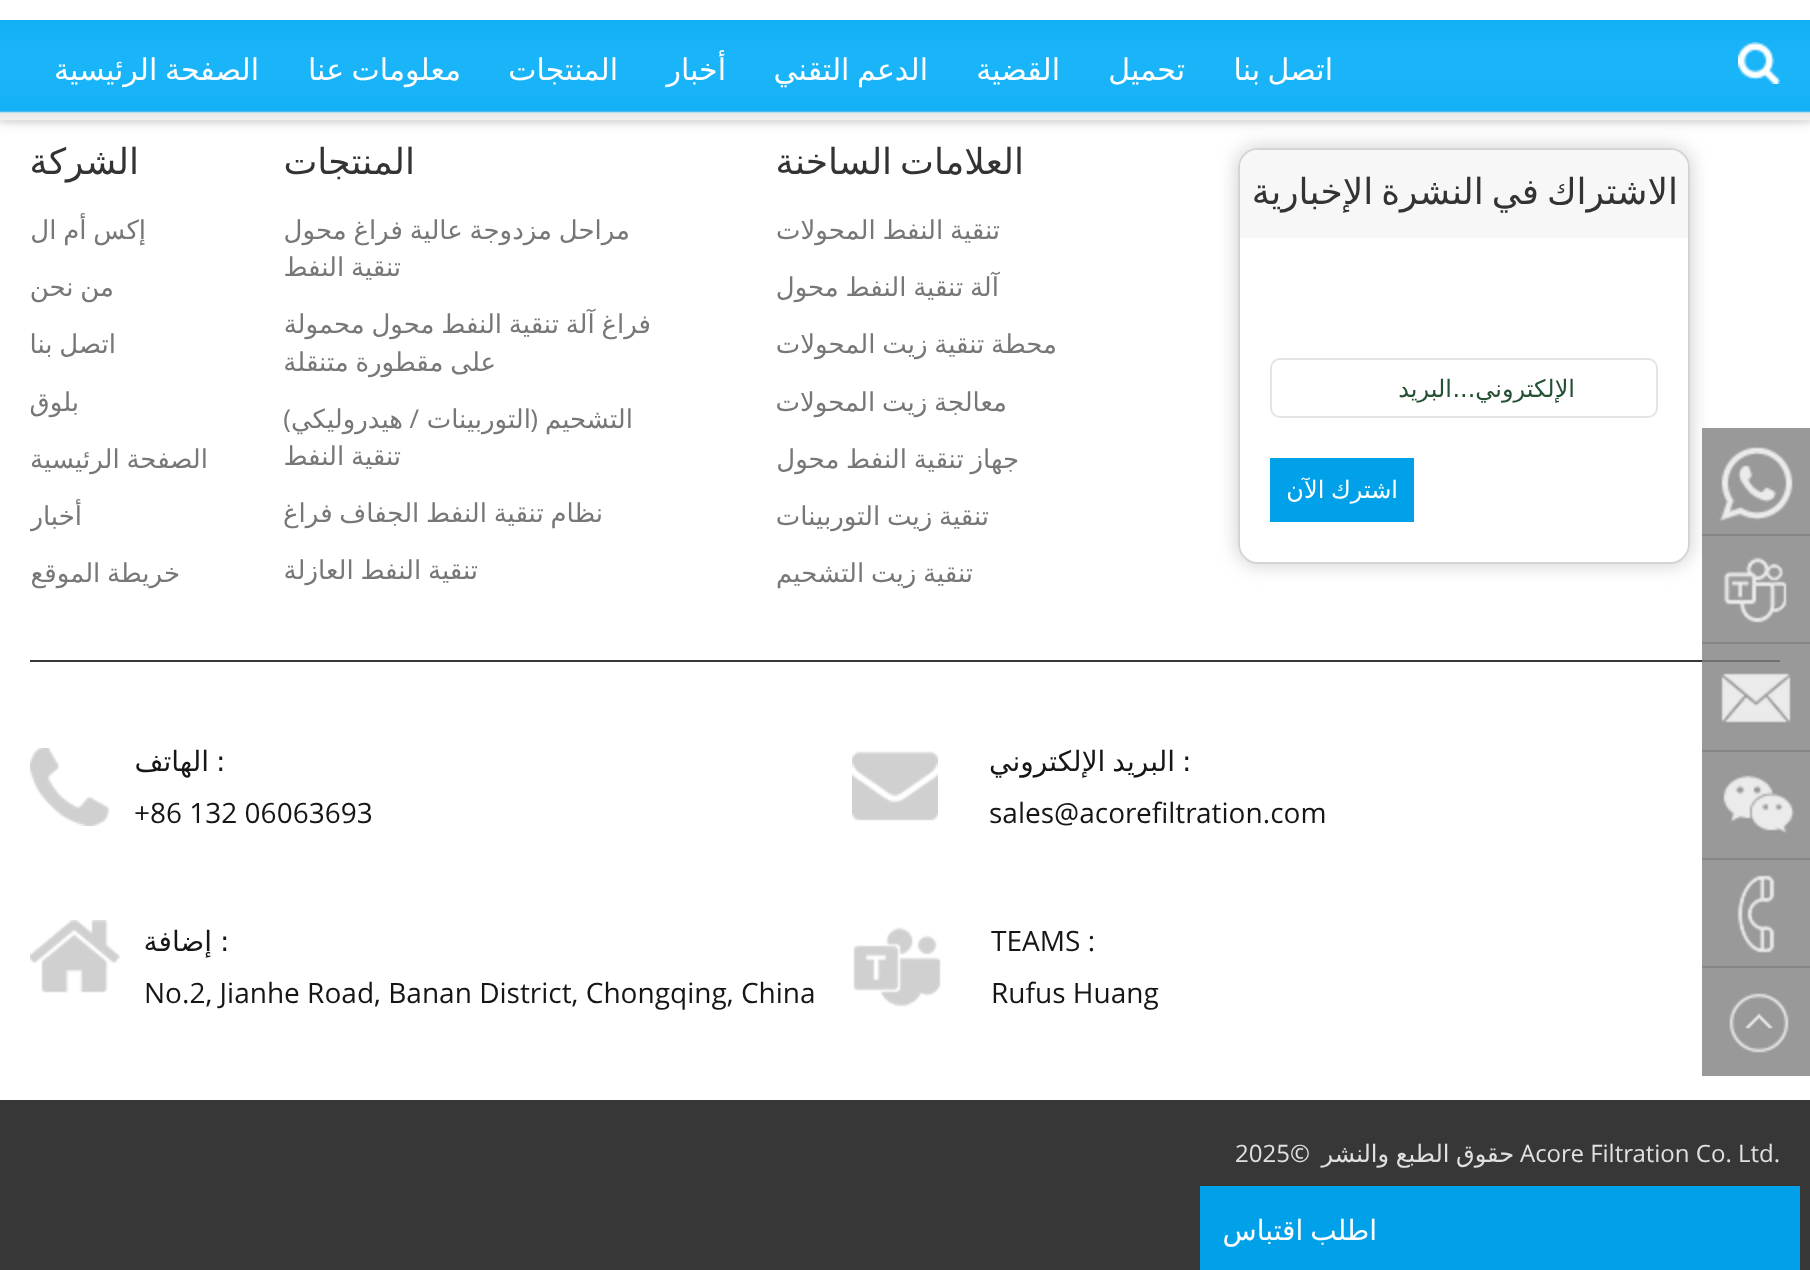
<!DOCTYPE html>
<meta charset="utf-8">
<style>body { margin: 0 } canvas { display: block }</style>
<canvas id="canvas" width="1810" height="1270"></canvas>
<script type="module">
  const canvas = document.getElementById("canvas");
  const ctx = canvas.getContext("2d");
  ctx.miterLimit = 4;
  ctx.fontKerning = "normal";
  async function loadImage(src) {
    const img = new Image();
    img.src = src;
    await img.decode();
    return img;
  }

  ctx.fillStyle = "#ffffff";
  ctx.fillRect(0, 0, 1810, 1270);
  ctx.fillStyle = "#999999";
  ctx.fillRect(1702, 860, 108, 106);
  ctx.fillRect(1702, 752, 108, 106);
  ctx.fillRect(1702, 644, 108, 106);
  ctx.fillStyle = "rgba(0, 0, 0, 0.1)";
  ctx.filter = "blur(6px)";
  ctx.beginPath();
  ctx.rect(0, 4, 1810, 120);
  ctx.fill();
  ctx.filter = "none";
  ctx.save();
  ctx.beginPath();
  ctx.moveTo(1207, 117);
  ctx.lineTo(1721, 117);
  ctx.lineTo(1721, 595);
  ctx.lineTo(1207, 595);
  ctx.closePath();
  ctx.moveTo(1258, 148);
  ctx.lineTo(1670, 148);
  ctx.bezierCurveTo(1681, 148, 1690, 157, 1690, 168);
  ctx.lineTo(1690, 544);
  ctx.bezierCurveTo(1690, 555, 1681, 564, 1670, 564);
  ctx.lineTo(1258, 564);
  ctx.bezierCurveTo(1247, 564, 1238, 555, 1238, 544);
  ctx.lineTo(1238, 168);
  ctx.bezierCurveTo(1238, 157, 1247, 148, 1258, 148);
  ctx.closePath();
  ctx.clip("evenodd");
  ctx.fillStyle = "#cccccc";
  ctx.filter = "blur(10px)";
  ctx.beginPath();
  ctx.roundRect(1238, 148, 452, 416, 20);
  ctx.fill();
  ctx.filter = "none";
  ctx.restore();
  ctx.fillStyle = "#ffffff";
  ctx.fillRect(0, 0, 1810, 120);
  ctx.drawImage(await loadImage("img1.png"), 0, 20, 1810, 105);
  ctx.drawImage(await loadImage("img2.png"), 1738, 42, 42, 42);
  ctx.wordSpacing = "-2px";
  ctx.direction = "rtl";
  ctx.font = "30px DejaVu Sans";
  ctx.fillText("اتصل بنا", 1333, 80);
  ctx.wordSpacing = "0px";
  ctx.fillText("تحميل", 1185, 80);
  ctx.fillText("القضية", 1060, 80);
  ctx.wordSpacing = "-2px";
  ctx.fillText("الدعم التقني", 928, 80);
  ctx.wordSpacing = "0px";
  ctx.fillText("أخبار", 726, 80);
  ctx.fillText("المنتجات", 618, 80);
  ctx.wordSpacing = "-2px";
  ctx.fillText("معلومات عنا", 461, 80);
  ctx.fillText("الصفحة الرئيسية", 259, 80);
  ctx.fillStyle = "#a2a2a2";
  ctx.fillRect(1702, 534, 108, 2);
  ctx.fillStyle = "rgba(128, 128, 128, 0.8)";
  ctx.fillRect(1702, 428, 108, 108);
  ctx.drawImage(await loadImage("img3.png"), 1719, 446, 74, 75);
  ctx.fillStyle = "#a2a2a2";
  ctx.fillRect(1702, 642, 108, 2);
  ctx.fillStyle = "rgba(128, 128, 128, 0.8)";
  ctx.fillRect(1702, 536, 108, 108);
  ctx.drawImage(await loadImage("img4.png"), 1723, 557, 64, 66);
  ctx.fillStyle = "#878787";
  ctx.fillRect(1702, 750, 108, 2);
  ctx.drawImage(await loadImage("img5.png"), 1721, 673, 70, 50);
  ctx.fillRect(1702, 858, 108, 2);
  ctx.drawImage(await loadImage("img6.png"), 1723, 775, 72, 58);
  ctx.fillRect(1702, 966, 108, 2);
  ctx.drawImage(await loadImage("img7.png"), 1737, 875, 38, 78);
  ctx.fillStyle = "#999999";
  ctx.fillRect(1702, 968, 108, 108);
  ctx.drawImage(await loadImage("img8.png"), 1729, 993, 60, 60);
  ctx.beginPath();
  ctx.roundRect(1239, 149, 450, 414, 19);
  ctx.strokeStyle = "#d4d4d4";
  ctx.lineWidth = 2;
  ctx.stroke();
  ctx.fillStyle = "#f7f7f7";
  ctx.beginPath();
  ctx.roundRect(1240, 150, 448, 88, [18, 18, 0, 0]);
  ctx.fill();
  ctx.wordSpacing = "-3.5px";
  ctx.font = "36px DejaVu Sans";
  ctx.fillStyle = "#333333";
  ctx.fillText("الاشتراك في النشرة الإخبارية", 1678, 204);
  ctx.beginPath();
  ctx.roundRect(1271, 359, 386, 58, 9);
  ctx.strokeStyle = "#e5e5e5";
  ctx.stroke();
  ctx.wordSpacing = "0px";
  ctx.font = "24px DejaVu Sans";
  ctx.fillStyle = "#245134";
  ctx.fillText("الإلكتروني...", 1575, 397);
  ctx.fillText("البريد", 1452, 397);
  ctx.fillStyle = "#00a1e9";
  ctx.fillRect(1270, 458, 144, 64);
  ctx.wordSpacing = "-1px";
  ctx.fillStyle = "#ffffff";
  ctx.fillText("اشترك الآن", 1398, 498);
  ctx.wordSpacing = "-3.5px";
  ctx.font = "36px DejaVu Sans";
  ctx.fillStyle = "#333333";
  ctx.fillText("العلامات الساخنة", 1024, 174);
  ctx.wordSpacing = "-1.5px";
  ctx.font = "26px DejaVu Sans";
  ctx.fillStyle = "#777777";
  ctx.fillText("تنقية النفط المحولات", 1000, 239);
  ctx.fillText("آلة تنقية النفط محول", 999, 296);
  ctx.fillText("محطة تنقية زيت المحولات", 1057, 353);
  ctx.fillText("معالجة زيت المحولات", 1007, 411);
  ctx.fillText("جهاز تنقية النفط محول", 1019, 468);
  ctx.fillText("تنقية زيت التوربينات", 989, 525);
  ctx.fillText("تنقية زيت التشحيم", 973, 582);
  ctx.wordSpacing = "0px";
  ctx.font = "36px DejaVu Sans";
  ctx.fillStyle = "#333333";
  ctx.fillText("المنتجات", 415, 174);
  ctx.wordSpacing = "-1.5px";
  ctx.font = "26px DejaVu Sans";
  ctx.fillStyle = "#777777";
  ctx.fillText("مراحل مزدوجة عالية فراغ محول", 630, 239);
  ctx.fillText("تنقية النفط", 401, 276);
  ctx.fillText("فراغ آلة تنقية النفط محول محمولة", 651, 333);
  ctx.fillText("على مقطورة متنقلة", 496, 371);
  ctx.wordSpacing = "0px";
  ctx.fillText("التشحيم", 633, 428);
  ctx.font = "26px Open Sans";
  ctx.fillText("(", 538, 428);
  ctx.font = "26px DejaVu Sans";
  ctx.fillText("التوربينات", 531, 428);
  ctx.font = "26px Open Sans";
  ctx.fillText("/", 419, 428);
  ctx.font = "26px DejaVu Sans";
  ctx.fillText("هيدروليكي", 403, 428);
  ctx.font = "26px Open Sans";
  ctx.fillText(")", 291, 428);
  ctx.wordSpacing = "-1.5px";
  ctx.font = "26px DejaVu Sans";
  ctx.fillText("تنقية النفط", 401, 465);
  ctx.fillText("نظام تنقية النفط الجفاف فراغ", 603, 522);
  ctx.fillText("تنقية النفط العازلة", 478, 579);
  ctx.wordSpacing = "0px";
  ctx.font = "36px DejaVu Sans";
  ctx.fillStyle = "#333333";
  ctx.fillText("الشركة", 139, 174);
  ctx.wordSpacing = "-1.5px";
  ctx.font = "26px DejaVu Sans";
  ctx.fillStyle = "#777777";
  ctx.fillText("إكس أم ال", 146, 239);
  ctx.fillText("من نحن", 114, 296);
  ctx.fillText("اتصل بنا", 116, 353);
  ctx.wordSpacing = "0px";
  ctx.fillText("بلوق", 79, 411);
  ctx.wordSpacing = "-1.5px";
  ctx.fillText("الصفحة الرئيسية", 208, 468);
  ctx.save();
  ctx.beginPath();
  ctx.rect(30, 192, 194, 420);
  ctx.clip();
  ctx.wordSpacing = "0px";
  ctx.fillText("أخبار", 82, 525);
  ctx.restore();
  ctx.fillText("خريطة الموقع", 180, 582);
  ctx.fillStyle = "#373737";
  ctx.fillRect(30, 660, 1672, 2);
  ctx.fillStyle = "#717171";
  ctx.fillRect(1702, 660, 78, 2);
  ctx.drawImage(await loadImage("img9.png"), 852, 751, 86, 70);
  ctx.wordSpacing = "0px";
  ctx.direction = "ltr";
  ctx.font = "28px DejaVu Sans";
  ctx.fillStyle = "#161616";
  ctx.fillText(":", 1182, 771);
  ctx.wordSpacing = "-2px";
  ctx.direction = "rtl";
  ctx.fillText("البريد الإلكتروني", 1175, 771);
  ctx.wordSpacing = "0px";
  ctx.direction = "ltr";
  ctx.font = "28px Open Sans";
  ctx.fillText("sales@acorefiltration.com", 989, 823);
  ctx.drawImage(await loadImage("img10.png"), 30, 748, 80, 78);
  ctx.font = "28px DejaVu Sans";
  ctx.fillText(":", 216, 771);
  ctx.direction = "rtl";
  ctx.fillText("الهاتف", 209, 771);
  ctx.direction = "ltr";
  ctx.font = "28px Open Sans";
  ctx.fillText("+86 132 06063693", 134, 823);
  ctx.drawImage(await loadImage("img11.png"), 853, 927, 88, 80);
  ctx.fillText("TEAMS :", 991, 951);
  ctx.fillText("Rufus Huang", 991, 1003);
  ctx.drawImage(await loadImage("img12.png"), 30, 920, 90, 73);
  ctx.font = "28px DejaVu Sans";
  ctx.fillText(":", 220, 951);
  ctx.direction = "rtl";
  ctx.fillText("إضافة", 212, 951);
  ctx.direction = "ltr";
  ctx.font = "28px Open Sans";
  ctx.fillText("No.2, Jianhe Road, Banan District, Chongqing, China", 144, 1003);
  ctx.fillStyle = "#373737";
  ctx.fillRect(0, 1100, 1810, 170);
  ctx.font = "24px Open Sans";
  ctx.fillStyle = "#e3dfdf";
  ctx.fillText("Acore Filtration Co. Ltd.", 1520, 1162);
  ctx.wordSpacing = "-1px";
  ctx.direction = "rtl";
  ctx.font = "24px DejaVu Sans";
  ctx.fillText("حقوق الطبع والنشر", 1514, 1162);
  ctx.wordSpacing = "0px";
  ctx.direction = "ltr";
  ctx.font = "24px Open Sans";
  ctx.fillText("2025©", 1235, 1162);
  ctx.fillStyle = "#00a1e9";
  ctx.fillRect(1200, 1186, 600, 84);
  ctx.wordSpacing = "-2px";
  ctx.direction = "rtl";
  ctx.font = "28px DejaVu Sans";
  ctx.fillStyle = "#ffffff";
  ctx.fillText("اطلب اقتباس", 1377, 1240);
</script>
